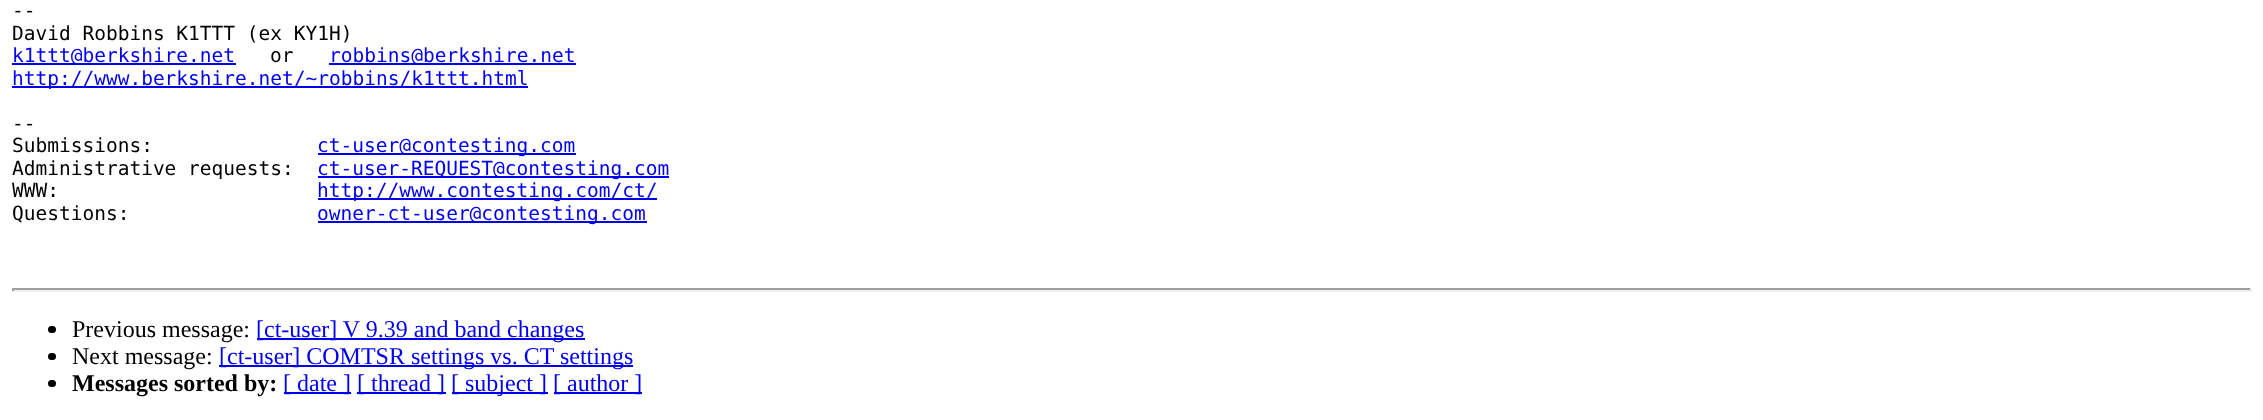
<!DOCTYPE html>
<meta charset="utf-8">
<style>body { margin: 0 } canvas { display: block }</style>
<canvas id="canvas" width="2263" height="420"></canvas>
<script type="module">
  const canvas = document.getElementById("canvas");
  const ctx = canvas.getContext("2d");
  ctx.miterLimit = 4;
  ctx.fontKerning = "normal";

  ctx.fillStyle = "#ffffff";
  ctx.fillRect(0, 0, 2263, 420);
  ctx.font = "19.5px DejaVu Sans Mono";
  ctx.fillStyle = "#000000";
  ctx.fillText("--", 12, 17);
  ctx.fillText("David Robbins K1TTT (ex KY1H)", 12, 40);
  ctx.fillStyle = "#0000ee";
  ctx.fillRect(12, 63, 224, 2);
  ctx.fillText("k1ttt@berkshire.net", 12, 62);
  ctx.fillStyle = "#000000";
  ctx.fillText("or", 270, 62);
  ctx.fillStyle = "#0000ee";
  ctx.fillRect(329, 63, 247, 2);
  ctx.fillText("robbins@berkshire.net", 329, 62);
  ctx.fillRect(12, 86, 516, 2);
  ctx.fillText("http://www.berkshire.net/~robbins/k1ttt.html", 12, 85);
  ctx.fillStyle = "#000000";
  ctx.fillText("--", 12, 130);
  ctx.fillText("Submissions:", 12, 152);
  ctx.fillStyle = "#0000ee";
  ctx.fillRect(318, 153, 258, 2);
  ctx.fillText("ct-user@contesting.com", 317, 152);
  ctx.fillStyle = "#000000";
  ctx.fillText("Administrative requests:", 12, 175);
  ctx.fillStyle = "#0000ee";
  ctx.fillRect(318, 176, 351, 2);
  ctx.fillText("ct-user-REQUEST@contesting.com", 317, 175);
  ctx.fillStyle = "#000000";
  ctx.fillText("WWW:", 12, 197);
  ctx.fillStyle = "#0000ee";
  ctx.fillRect(318, 198, 339, 2);
  ctx.fillText("http://www.contesting.com/ct/", 317, 197);
  ctx.fillStyle = "#000000";
  ctx.fillText("Questions:", 12, 220);
  ctx.fillStyle = "#0000ee";
  ctx.fillRect(318, 221, 329, 2);
  ctx.fillText("owner-ct-user@contesting.com", 317, 220);
  ctx.fillStyle = "#9f9f9f";
  ctx.fillRect(12, 288, 2240, 2);
  ctx.fillStyle = "#eeeeee";
  ctx.fillRect(2250, 288, 2, 3);
  ctx.fillRect(12, 290, 2240, 2);
  ctx.fillStyle = "#9f9f9f";
  ctx.fillRect(12, 288, 2, 3);
  ctx.fillStyle = "#000000";
  ctx.beginPath();
  ctx.roundRect(48, 326, 8, 7, 3.5);
  ctx.fill();
  ctx.font = "24px Liberation Serif";
  ctx.fillText("Previous message:", 72, 337);
  ctx.fillStyle = "#0000ee";
  ctx.fillRect(257, 338, 328, 2);
  ctx.fillText("[ct-user] V 9.39 and band changes", 256, 337);
  ctx.fillStyle = "#000000";
  ctx.beginPath();
  ctx.roundRect(48, 353, 8, 7, 3.5);
  ctx.fill();
  ctx.fillText("Next message:", 72, 364);
  ctx.fillStyle = "#0000ee";
  ctx.fillRect(219, 365, 414, 2);
  ctx.fillText("[ct-user] COMTSR settings vs. CT settings", 219, 364);
  ctx.fillStyle = "#000000";
  ctx.beginPath();
  ctx.roundRect(48, 380, 8, 7, 3.5);
  ctx.fill();
  ctx.font = "bold 24px Liberation Serif";
  ctx.fillText("Messages sorted by:", 72, 391);
  ctx.fillStyle = "#0000ee";
  ctx.fillRect(284, 392, 67, 2);
  ctx.font = "24px Liberation Serif";
  ctx.fillText("[ date ]", 283, 391);
  ctx.fillRect(357, 392, 89, 2);
  ctx.fillText("[ thread ]", 357, 391);
  ctx.fillRect(452, 392, 96, 2);
  ctx.fillText("[ subject ]", 451, 391);
  ctx.fillRect(554, 392, 88, 2);
  ctx.fillText("[ author ]", 553, 391);
</script>
